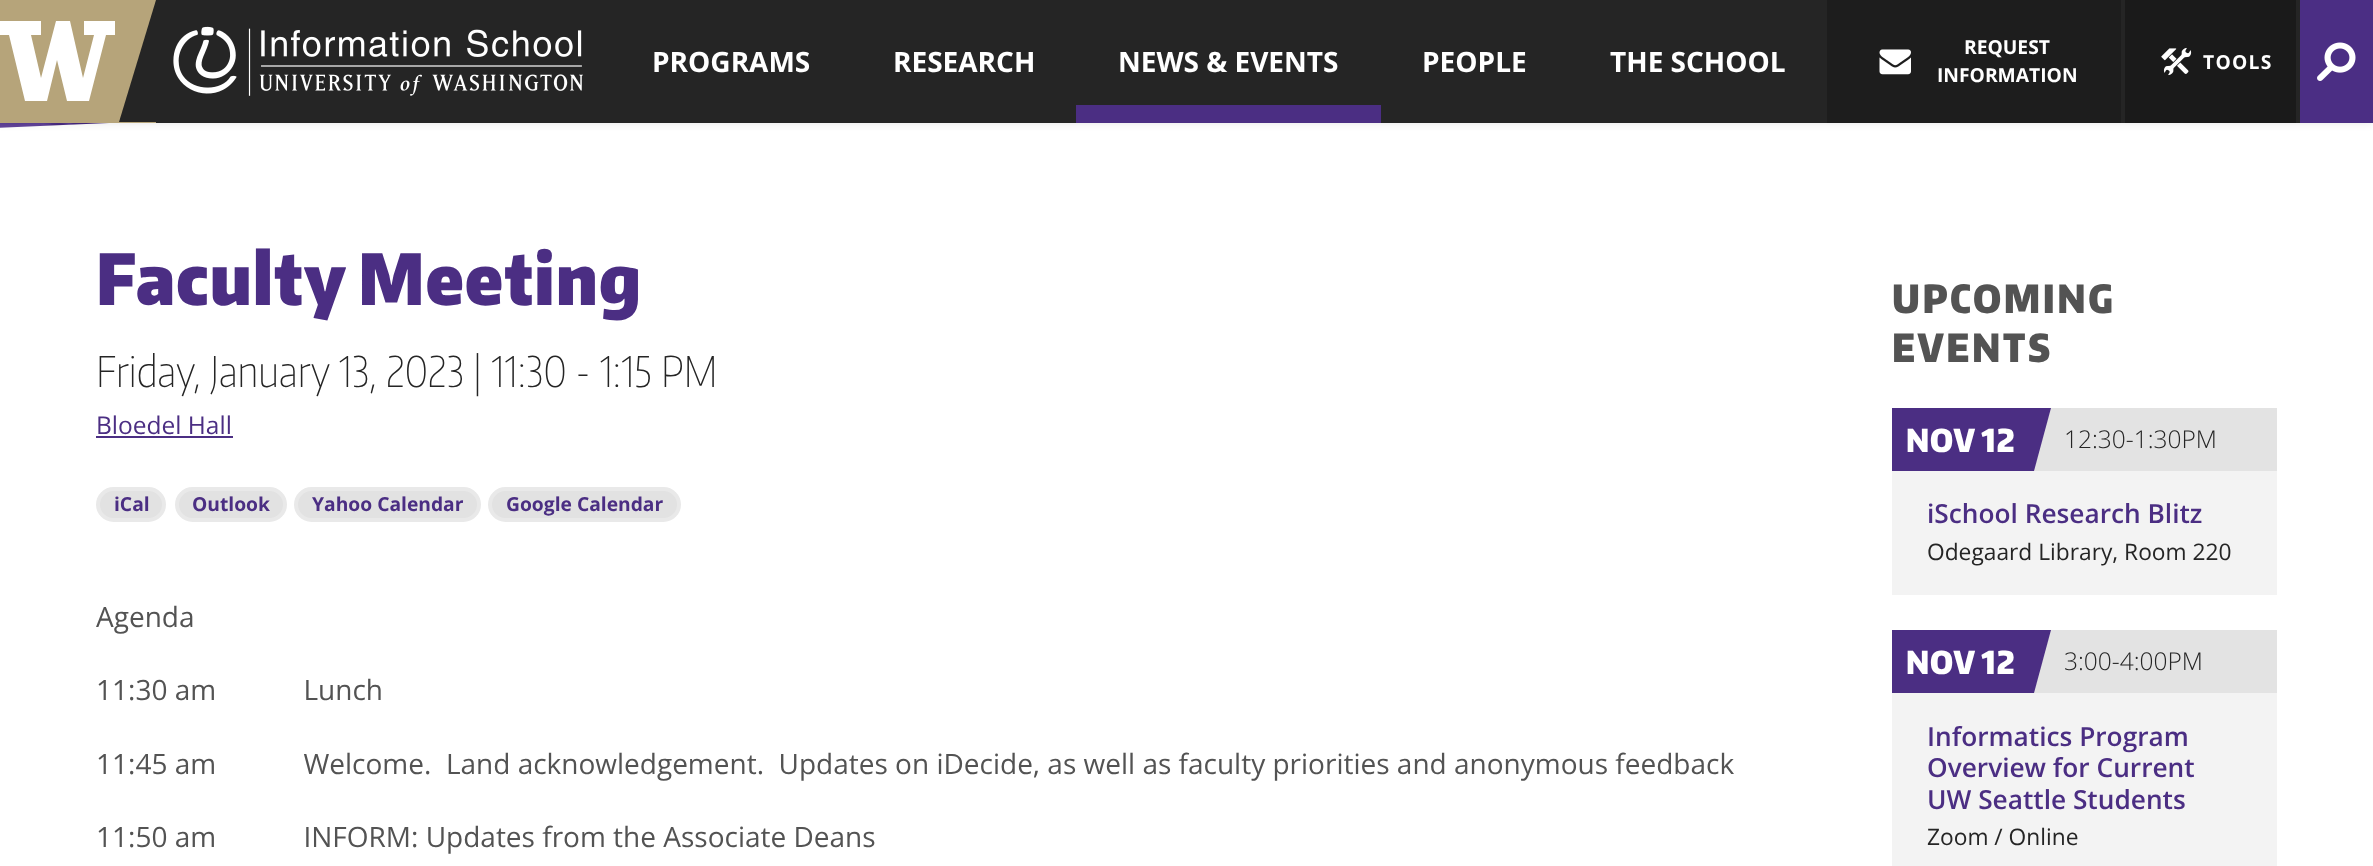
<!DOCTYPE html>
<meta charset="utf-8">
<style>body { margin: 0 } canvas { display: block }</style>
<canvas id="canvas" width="2373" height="866"></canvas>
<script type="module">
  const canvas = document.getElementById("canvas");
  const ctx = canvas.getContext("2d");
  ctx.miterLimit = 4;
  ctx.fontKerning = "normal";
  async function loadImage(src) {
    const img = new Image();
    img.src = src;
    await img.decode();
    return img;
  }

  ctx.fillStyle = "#ffffff";
  ctx.fillRect(0, 0, 2373, 866);
  ctx.drawImage(await loadImage("img5.png"), 0, 123, 111, 5);
  ctx.beginPath();
  ctx.moveTo(-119, 133);
  ctx.lineTo(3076, -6);
  ctx.lineTo(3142, 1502);
  ctx.lineTo(-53, 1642);
  ctx.closePath();
  ctx.fill();
  ctx.fillStyle = "rgba(0, 0, 0, 0.1)";
  ctx.filter = "blur(4.5px)";
  ctx.beginPath();
  ctx.rect(0, 0, 2373, 123);
  ctx.fill();
  ctx.filter = "none";
  ctx.fillStyle = "#252525";
  ctx.fillRect(156, 0, 2144, 123);
  ctx.fillStyle = "#b6a47a";
  ctx.fillRect(0, 0, 156, 123);
  ctx.fillStyle = "#ffffff";
  ctx.beginPath();
  ctx.moveTo(84, 21);
  ctx.lineTo(84, 35);
  ctx.lineTo(94, 35);
  ctx.lineTo(83, 78);
  ctx.lineTo(70, 21);
  ctx.lineTo(56, 21);
  ctx.lineTo(41, 78);
  ctx.lineTo(31, 35);
  ctx.lineTo(41, 35);
  ctx.lineTo(41, 21);
  ctx.lineTo(0, 21);
  ctx.lineTo(0, 35);
  ctx.lineTo(9, 35);
  ctx.lineTo(25, 101);
  ctx.lineTo(47, 101);
  ctx.lineTo(57, 60);
  ctx.lineTo(67, 101);
  ctx.lineTo(89, 101);
  ctx.lineTo(106, 35);
  ctx.lineTo(115, 35);
  ctx.lineTo(115, 21);
  ctx.closePath();
  ctx.fill();
  ctx.fillStyle = "#252525";
  ctx.beginPath();
  ctx.moveTo(156, 122);
  ctx.lineTo(119, 122);
  ctx.lineTo(156, 0);
  ctx.closePath();
  ctx.fill();
  ctx.drawImage(await loadImage("img1.png"), 173, 26, 410, 70);
  ctx.font = "bold 28px Open Sans";
  ctx.fillStyle = "#ffffff";
  ctx.fillText("PROGRAMS", 652, 72);
  ctx.fillText("RESEARCH", 893, 72);
  ctx.fillStyle = "#4b2e83";
  ctx.fillRect(1076, 105, 305, 18);
  ctx.fillStyle = "#ffffff";
  ctx.fillText("NEWS & EVENTS", 1118, 72);
  ctx.fillText("PEOPLE", 1422, 72);
  ctx.fillText("THE SCHOOL", 1610, 72);
  ctx.fillStyle = "#1d1d1d";
  ctx.fillRect(1827, 0, 294, 123);
  ctx.drawImage(await loadImage("img2.png"), 1879, 49, 32, 26);
  ctx.font = "bold 19.25px Open Sans";
  ctx.fillStyle = "#ffffff";
  ctx.fillText("REQUEST", 1964, 54);
  ctx.fillText("INFORMATION", 1937, 82);
  ctx.fillStyle = "#1a1a1a";
  ctx.fillRect(2125, 0, 171, 123);
  ctx.drawImage(await loadImage("img3.png"), 2161, 47, 31, 29);
  ctx.letterSpacing = "1.25px";
  ctx.fillStyle = "#ffffff";
  ctx.fillText("TOOLS", 2203, 69);
  ctx.fillStyle = "#4b2e84";
  ctx.fillRect(2300, 0, 73, 123);
  ctx.drawImage(await loadImage("img4.png"), 2317, 42, 39, 39);
  ctx.letterSpacing = "0.9px";
  ctx.font = "900 70px Encode Sans Condensed";
  ctx.fillStyle = "#4b2e83";
  ctx.fillText("Faculty Meeting", 96, 305);
  ctx.letterSpacing = "0px";
  ctx.font = "100 42px Encode Sans Condensed";
  ctx.fillStyle = "#252525";
  ctx.fillText("Friday, January 13, 2023 | 11:30 - 1:15 PM", 96, 387);
  ctx.font = "24.5px Open Sans";
  ctx.fillStyle = "#4b2e83";
  ctx.fillText("Bloedel Hall", 96, 434);
  ctx.fillRect(96, 436, 137, 2);
  ctx.fillStyle = "#e2e2e2";
  ctx.beginPath();
  ctx.roundRect(98, 489, 66, 31, 15.5);
  ctx.fill();
  ctx.strokeStyle = "#e9e9e9";
  ctx.lineWidth = 4;
  ctx.stroke();
  ctx.font = "bold 19.25px Open Sans";
  ctx.fillStyle = "#4b2e83";
  ctx.fillText("iCal", 114, 511);
  ctx.fillStyle = "#e2e2e2";
  ctx.beginPath();
  ctx.roundRect(177, 489, 108, 31, 15.5);
  ctx.fill();
  ctx.stroke();
  ctx.fillStyle = "#4b2e83";
  ctx.fillText("Outlook", 192, 511);
  ctx.fillStyle = "#e2e2e2";
  ctx.beginPath();
  ctx.roundRect(296, 489, 183, 31, 15.5);
  ctx.fill();
  ctx.stroke();
  ctx.fillStyle = "#4b2e83";
  ctx.fillText("Yahoo Calendar", 312, 511);
  ctx.fillStyle = "#e2e2e2";
  ctx.beginPath();
  ctx.roundRect(490, 489, 189, 31, 15.5);
  ctx.fill();
  ctx.stroke();
  ctx.fillStyle = "#4b2e83";
  ctx.fillText("Google Calendar", 506, 511);
  ctx.font = "28px Open Sans";
  ctx.fillStyle = "#535353";
  ctx.fillText("Agenda", 96, 627);
  ctx.fillText("11:30 am            Lunch", 96, 700);
  ctx.fillText("11:45 am            Welcome.  Land acknowledgement.  Updates on iDecide, as well as faculty priorities and anonymous feedback", 96, 774);
  ctx.fillText("11:50 am            INFORM: Updates from the Associate Deans", 96, 847);
  ctx.letterSpacing = "2.5px";
  ctx.font = "900 38.5px Encode Sans Condensed";
  ctx.fillText("UPCOMING", 1892, 313);
  ctx.fillText("EVENTS", 1892, 362);
  ctx.fillStyle = "#f3f3f3";
  ctx.fillRect(1892, 471, 385, 124);
  ctx.fillStyle = "#e3e3e3";
  ctx.fillRect(2051, 408, 226, 63);
  ctx.fillStyle = "#4b2e83";
  ctx.fillRect(1892, 408, 159, 63);
  ctx.letterSpacing = "0.9px";
  ctx.font = "900 31.5px Encode Sans Condensed";
  ctx.fillStyle = "#ffffff";
  ctx.fillText("NOV 12", 1906, 452);
  ctx.fillStyle = "#e3e3e3";
  ctx.beginPath();
  ctx.moveTo(2051, 471);
  ctx.lineTo(2034, 471);
  ctx.lineTo(2051, 408);
  ctx.closePath();
  ctx.fill();
  ctx.letterSpacing = "0px";
  ctx.font = "300 24.5px Open Sans";
  ctx.fillStyle = "#252525";
  ctx.fillText("12:30-1:30PM", 2064, 448);
  ctx.font = "600 26.25px Open Sans";
  ctx.fillStyle = "#4b2e83";
  ctx.fillText("iSchool Research Blitz", 1927, 523);
  ctx.font = "22.75px Open Sans";
  ctx.fillStyle = "#252525";
  ctx.fillText("Odegaard Library, Room 220", 1927, 560);
  ctx.fillStyle = "#f3f3f3";
  ctx.fillRect(1892, 693, 385, 173);
  ctx.fillStyle = "#e3e3e3";
  ctx.fillRect(2051, 630, 226, 63);
  ctx.fillStyle = "#4b2e83";
  ctx.fillRect(1892, 630, 159, 63);
  ctx.letterSpacing = "0.9px";
  ctx.font = "900 31.5px Encode Sans Condensed";
  ctx.fillStyle = "#ffffff";
  ctx.fillText("NOV 12", 1906, 674);
  ctx.fillStyle = "#e3e3e3";
  ctx.beginPath();
  ctx.moveTo(2051, 693);
  ctx.lineTo(2034, 693);
  ctx.lineTo(2051, 630);
  ctx.closePath();
  ctx.fill();
  ctx.letterSpacing = "0px";
  ctx.font = "300 24.5px Open Sans";
  ctx.fillStyle = "#252525";
  ctx.fillText("3:00-4:00PM", 2064, 670);
  ctx.font = "600 26.25px Open Sans";
  ctx.fillStyle = "#4b2e83";
  ctx.fillText("Informatics Program", 1927, 746);
  ctx.fillText("Overview for Current", 1927, 777);
  ctx.fillText("UW Seattle Students", 1927, 809);
  ctx.font = "22.75px Open Sans";
  ctx.fillStyle = "#252525";
  ctx.fillText("Zoom / Online", 1927, 845);
</script>
